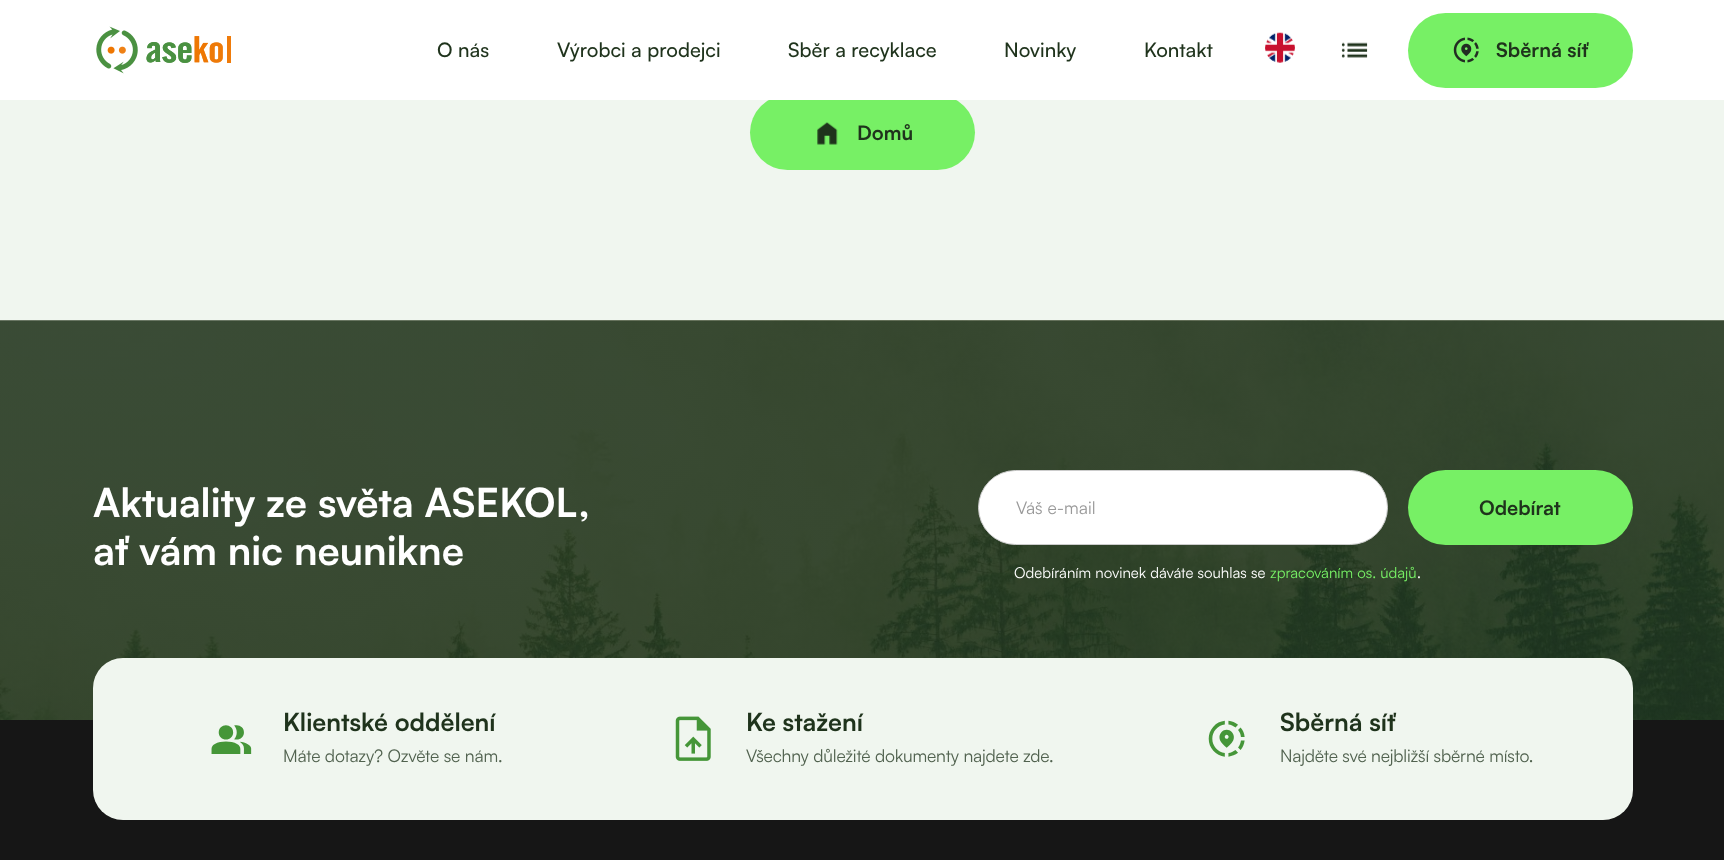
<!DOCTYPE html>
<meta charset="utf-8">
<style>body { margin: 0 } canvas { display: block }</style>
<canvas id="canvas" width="1724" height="860"></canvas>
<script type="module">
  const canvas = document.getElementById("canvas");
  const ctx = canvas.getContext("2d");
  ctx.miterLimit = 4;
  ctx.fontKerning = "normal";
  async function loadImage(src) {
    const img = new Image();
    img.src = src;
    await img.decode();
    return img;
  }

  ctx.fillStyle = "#ffffff";
  ctx.fillRect(0, 0, 1724, 860);
  ctx.fillStyle = "#f0f6ef";
  ctx.fillRect(0, 100, 1724, 220);
  ctx.fillStyle = "#77f065";
  ctx.beginPath();
  ctx.roundRect(750, 95, 225, 75, 37.5);
  ctx.fill();
  ctx.fillStyle = "#ffffff";
  ctx.fillRect(769, 95, 187, 5);
  ctx.drawImage(await loadImage("img1.png"), 96, 26, 135, 48);
  ctx.font = "500 20px Satoshi";
  ctx.fillStyle = "#1f331c";
  ctx.fillText("O nás", 437, 57);
  ctx.fillText("Výrobci a prodejci", 557, 57);
  ctx.fillText("Sběr a recyklace", 788, 57);
  ctx.fillText("Novinky", 1004, 57);
  ctx.fillText("Kontakt", 1144, 57);
  ctx.drawImage(await loadImage("img2.png"), 1265, 32, 30, 31);
  ctx.drawImage(await loadImage("img3.png"), 1341, 42, 27, 16);
  ctx.fillStyle = "#77f065";
  ctx.beginPath();
  ctx.roundRect(1408, 13, 225, 75, 37.5);
  ctx.fill();
  ctx.drawImage(await loadImage("img4.png"), 1453, 37, 26, 26);
  ctx.font = "bold 20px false";
  ctx.fillStyle = "#1f331c";
  ctx.fillText("Sběrná síť", 1496, 57);
  ctx.drawImage(await loadImage("img5.png"), 817, 122, 21, 23);
  ctx.fillText("Domů", 857, 140);
  ctx.drawImage(await loadImage("img6.png"), 0, 320, 1724, 400);
  ctx.font = "bold 40px false";
  ctx.fillStyle = "#ffffff";
  ctx.fillText("Aktuality ze světa ASEKOL,", 93, 517);
  ctx.fillText("ať vám nic neunikne", 93, 565);
  ctx.beginPath();
  ctx.roundRect(978.5, 470.5, 409, 74, 37);
  ctx.fill();
  ctx.strokeStyle = "#cccccc";
  ctx.stroke();
  ctx.font = "17.5px false";
  ctx.fillStyle = "#999999";
  ctx.fillText("Váš e-mail", 1016, 514);
  ctx.fillStyle = "#77f065";
  ctx.beginPath();
  ctx.roundRect(1408, 470, 225, 75, 37.5);
  ctx.fill();
  ctx.font = "bold 20px false";
  ctx.fillStyle = "#1f331c";
  ctx.fillText("Odebírat", 1479, 515);
  ctx.font = "15px false";
  ctx.fillStyle = "#ffffff";
  ctx.fillText("Odebíráním novinek dáváte souhlas se", 1014, 578);
  ctx.fillStyle = "#77f065";
  ctx.fillText("zpracováním os. údajů", 1270, 578);
  ctx.fillStyle = "#ffffff";
  ctx.fillText(".", 1417, 578);
  ctx.fillStyle = "#161616";
  ctx.fillRect(0, 720, 1724, 140);
  ctx.fillStyle = "#f0f6ef";
  ctx.beginPath();
  ctx.roundRect(93, 658, 1540, 162, 30);
  ctx.fill();
  ctx.drawImage(await loadImage("img7.png"), 211, 725, 41, 29);
  ctx.font = "bold 25px false";
  ctx.fillStyle = "#1f331c";
  ctx.fillText("Klientské oddělení", 283, 731);
  ctx.letterSpacing = "-0.2px";
  ctx.font = "17.5px false";
  ctx.fillStyle = "#51624f";
  ctx.fillText("Máte dotazy? Ozvěte se nám.", 283, 762);
  ctx.drawImage(await loadImage("img8.png"), 675, 716, 36, 45);
  ctx.letterSpacing = "0px";
  ctx.font = "bold 25px false";
  ctx.fillStyle = "#1f331c";
  ctx.fillText("Ke stažení", 746, 731);
  ctx.letterSpacing = "-0.2px";
  ctx.font = "17.5px false";
  ctx.fillStyle = "#51624f";
  ctx.fillText("Všechny důležité dokumenty najdete zde.", 746, 762);
  ctx.drawImage(await loadImage("img9.png"), 1208, 720, 37, 37);
  ctx.letterSpacing = "0px";
  ctx.font = "bold 25px false";
  ctx.fillStyle = "#1f331c";
  ctx.fillText("Sběrná síť", 1280, 731);
  ctx.letterSpacing = "-0.2px";
  ctx.font = "17.5px false";
  ctx.fillStyle = "#51624f";
  ctx.fillText("Najděte své nejbližší sběrné místo.", 1280, 762);
</script>
